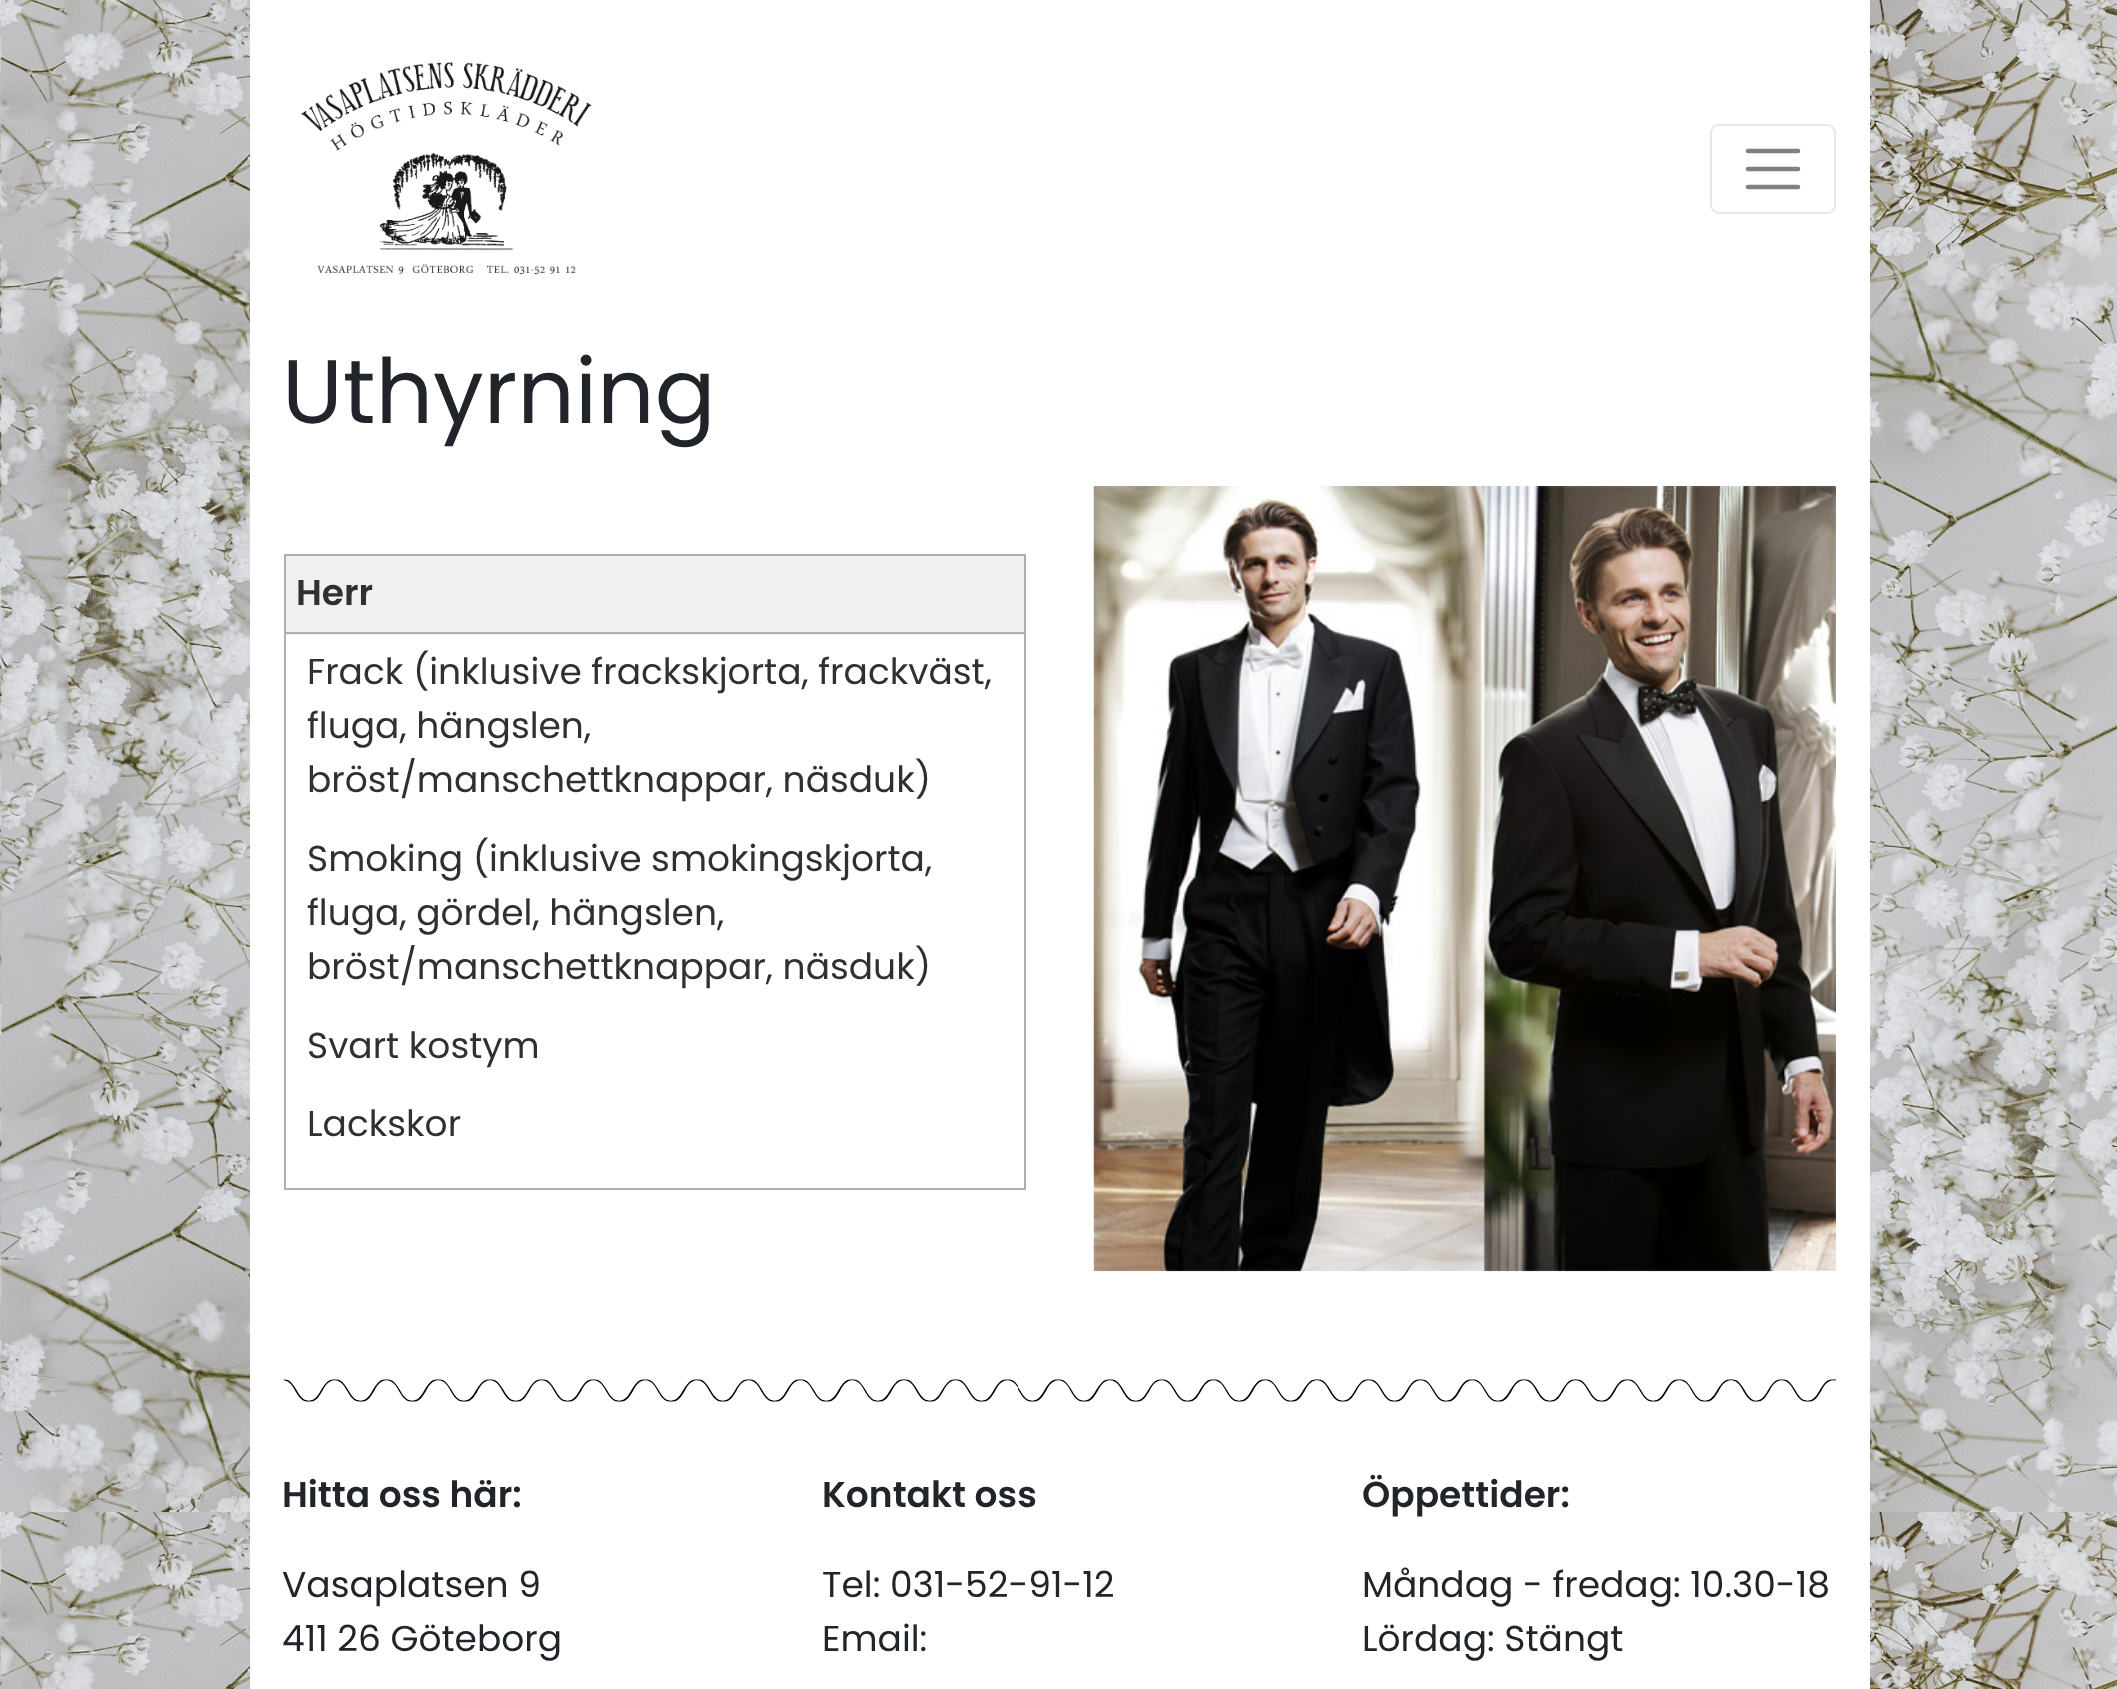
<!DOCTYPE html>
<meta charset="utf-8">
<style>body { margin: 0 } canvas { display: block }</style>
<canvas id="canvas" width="2117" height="1689"></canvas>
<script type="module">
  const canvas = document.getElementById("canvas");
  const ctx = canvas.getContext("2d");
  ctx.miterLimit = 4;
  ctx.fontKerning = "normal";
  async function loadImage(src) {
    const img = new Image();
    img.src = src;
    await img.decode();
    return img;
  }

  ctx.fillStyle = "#ffffff";
  ctx.fillRect(0, 0, 2117, 1689);
  ctx.drawImage(await loadImage("img1.png"), 0, 0, 2117, 1689);
  ctx.fillRect(250, 0, 1620, 1689);
  ctx.drawImage(await loadImage("img2.png"), 301, 62, 291, 213);
  ctx.beginPath();
  ctx.roundRect(1711, 125, 124, 88, 8);
  ctx.strokeStyle = "#e6e6e6";
  ctx.lineWidth = 2;
  ctx.stroke();
  ctx.beginPath();
  ctx.moveTo(1748, 151);
  ctx.lineTo(1798, 151);
  ctx.moveTo(1748, 169);
  ctx.lineTo(1798, 169);
  ctx.moveTo(1748, 187);
  ctx.lineTo(1798, 187);
  ctx.strokeStyle = "#808080";
  ctx.lineWidth = 4.5;
  ctx.lineCap = "round";
  ctx.stroke();
  ctx.font = "90px Poppins";
  ctx.fillStyle = "#212529";
  ctx.fillText("Uthyrning", 282, 423);
  ctx.fillStyle = "#b3adad";
  ctx.fillRect(284, 554, 742, 2);
  ctx.fillRect(1024, 554, 2, 636);
  ctx.fillRect(284, 1188, 742, 2);
  ctx.fillRect(284, 554, 2, 636);
  ctx.fillStyle = "#f0f0f0";
  ctx.fillRect(286, 556, 738, 79);
  ctx.fillStyle = "#b3adad";
  ctx.fillRect(284, 632, 742, 2);
  ctx.font = "600 36px Poppins";
  ctx.fillStyle = "#313030";
  ctx.fillText("Herr", 296, 605);
  ctx.font = "36px Poppins";
  ctx.fillText("Frack (inklusive frackskjorta, frackväst,", 307, 684);
  ctx.fillText("fluga, hängslen,", 307, 738);
  ctx.fillText("bröst/manschettknappar, näsduk)", 307, 792);
  ctx.fillText("Smoking (inklusive smokingskjorta,", 307, 871);
  ctx.fillText("fluga, gördel, hängslen,", 307, 925);
  ctx.fillText("bröst/manschettknappar, näsduk)", 307, 979);
  ctx.fillText("Svart kostym", 307, 1058);
  ctx.fillText("Lackskor", 307, 1136);
  ctx.drawImage(await loadImage("img3.png"), 1093, 486, 743, 786);
  ctx.drawImage(await loadImage("img4.png"), 283, 1379, 1553, 23);
  ctx.font = "600 36px Poppins";
  ctx.fillStyle = "#212529";
  ctx.fillText("Hitta oss här:", 282, 1507);
  ctx.font = "36px Poppins";
  ctx.fillText("Vasaplatsen 9", 282, 1597);
  ctx.fillText("411 26 Göteborg", 282, 1651);
  ctx.font = "600 36px Poppins";
  ctx.fillText("Kontakt oss", 822, 1507);
  ctx.font = "36px Poppins";
  ctx.fillText("Tel: 031-52-91-12", 822, 1597);
  ctx.fillText("Email:", 822, 1651);
  ctx.font = "600 36px Poppins";
  ctx.fillText("Öppettider:", 1362, 1507);
  ctx.font = "36px Poppins";
  ctx.fillText("Måndag - fredag: 10.30-18", 1362, 1597);
  ctx.fillText("Lördag: Stängt", 1362, 1651);
</script>
